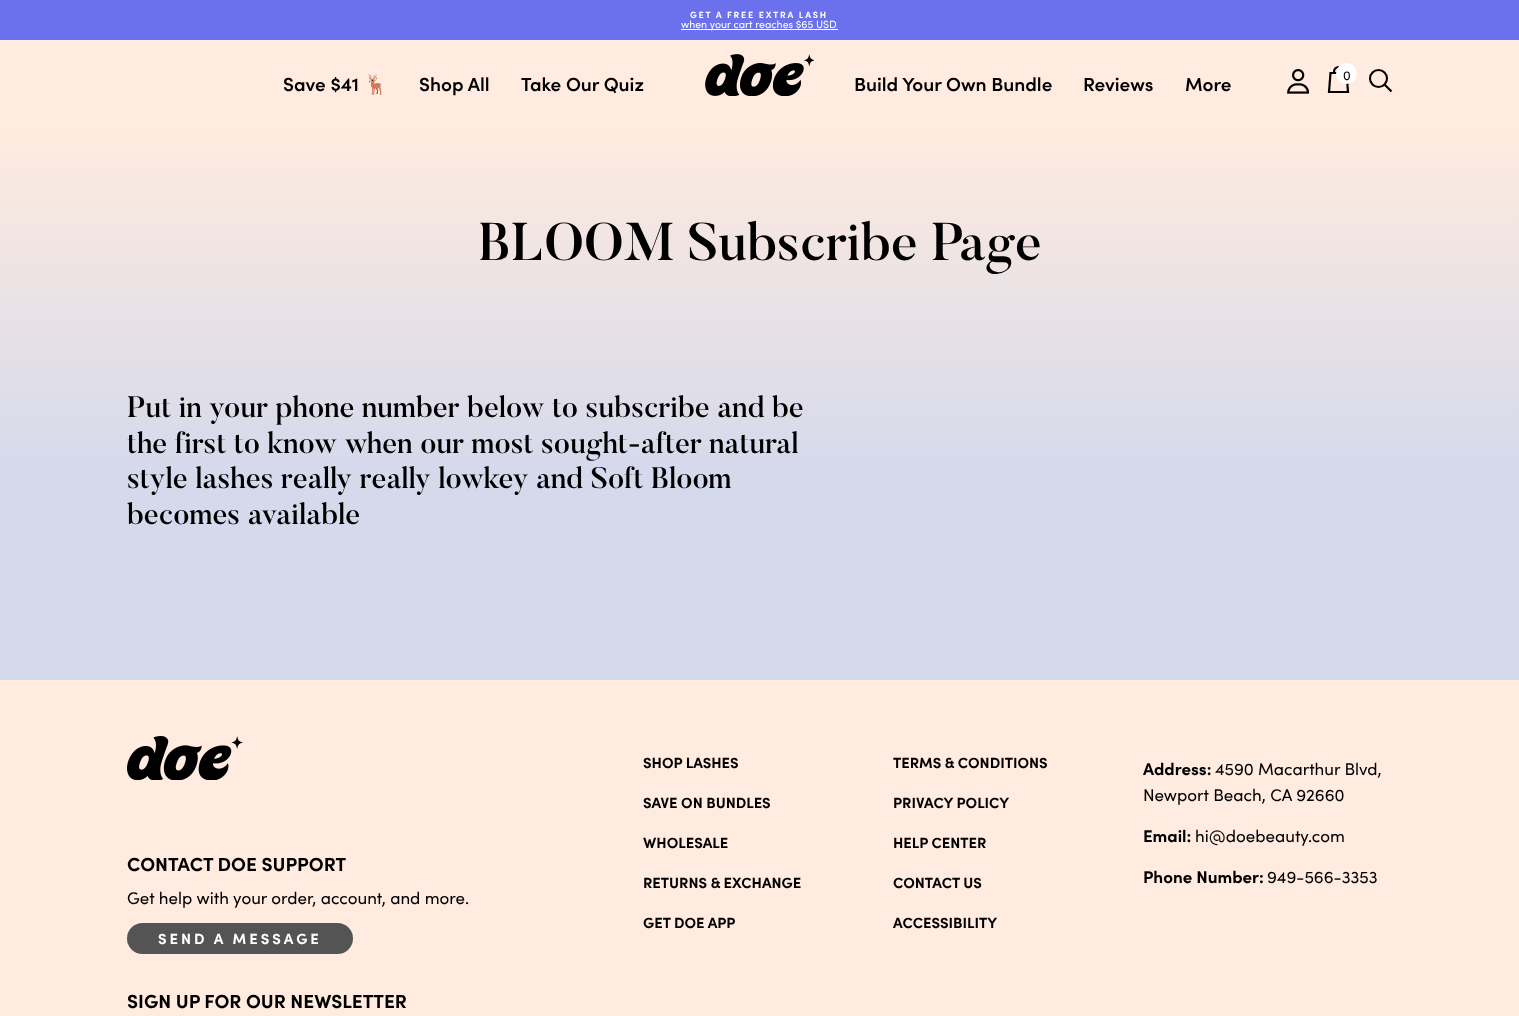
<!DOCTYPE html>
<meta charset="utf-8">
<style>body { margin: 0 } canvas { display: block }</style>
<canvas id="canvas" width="1519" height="1016"></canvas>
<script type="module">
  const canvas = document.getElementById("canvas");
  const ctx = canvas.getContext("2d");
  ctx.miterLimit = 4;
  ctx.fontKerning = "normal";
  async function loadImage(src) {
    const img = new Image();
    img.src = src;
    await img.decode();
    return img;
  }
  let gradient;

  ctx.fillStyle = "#ffffff";
  ctx.fillRect(0, 0, 1519, 1016);
  ctx.fillStyle = "#ffebdf";
  ctx.fillRect(0, 40, 1519, 92);
  ctx.fillStyle = "#6b70ed";
  ctx.fillRect(0, 0, 1519, 40);
  ctx.letterSpacing = "1.75px";
  ctx.font = "bold 9px Sofia";
  ctx.fillStyle = "#ffffff";
  ctx.fillText("GET A FREE EXTRA LASH", 690, 18);
  ctx.fillRect(681, 29, 157, 1);
  ctx.letterSpacing = "0px";
  ctx.font = "10.5px Sofia";
  ctx.fillText("when your cart reaches $65 USD", 681, 28);
  ctx.drawImage(await loadImage("img1.png"), 705, 54, 109, 42);
  ctx.drawImage(await loadImage("img2.png"), 1287, 69, 22, 25);
  ctx.beginPath();
  ctx.moveTo(1329, 92);
  ctx.lineTo(1330.5, 73);
  ctx.lineTo(1346.5, 73);
  ctx.lineTo(1348, 92);
  ctx.closePath();
  ctx.moveTo(1343, 72);
  ctx.bezierCurveTo(1343, 65.5, 1334, 65.5, 1334, 72);
  ctx.strokeStyle = "#000000";
  ctx.lineWidth = 2.2;
  ctx.stroke();
  ctx.beginPath();
  ctx.arc(1346.5, 73.5, 10.5, 0, Math.PI * 2);
  ctx.fill();
  ctx.font = "13px Sofia";
  ctx.fillStyle = "#000000";
  ctx.fillText("0", 1343, 80);
  ctx.beginPath();
  ctx.arc(1378.5, 78.5, 8.5, 0, Math.PI * 2);
  ctx.lineWidth = 2.1;
  ctx.stroke();
  ctx.beginPath();
  ctx.moveTo(1384, 84);
  ctx.lineTo(1391.5, 91.5);
  ctx.stroke();
  ctx.font = "600 19px Sofia";
  ctx.fillText("Save $41", 283, 91);
  ctx.font = "bold 19px Noto Color Emoji";
  ctx.fillText("🦌", 364, 91);
  ctx.font = "600 19px Sofia";
  ctx.fillText("Shop All", 419, 91);
  ctx.fillText("Take Our Quiz", 521, 91);
  ctx.fillText("Build Your Own Bundle", 854, 91);
  ctx.fillText("Reviews", 1083, 91);
  ctx.fillText("More", 1185, 91);
  gradient = ctx.createLinearGradient(760, 680, 760, 127);
  gradient.addColorStop(0.37, "#d5d9ec");
  gradient.addColorStop(1, "#ffebdf");
  ctx.fillStyle = gradient;
  ctx.fillRect(0, 132, 1519, 548);
  ctx.font = "500 52.75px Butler";
  ctx.fillStyle = "#000000";
  ctx.fillText("BLOOM Subscribe Page", 478, 260);
  ctx.font = "500 29.5px Butler";
  ctx.fillText("Put in your phone number below to subscribe and be", 127, 417);
  ctx.fillText("the first to know when our most sought-after natural", 127, 453);
  ctx.fillText("style lashes really really lowkey and Soft Bloom", 127, 488);
  ctx.fillText("becomes available", 127, 524);
  ctx.fillStyle = "#ffebdf";
  ctx.fillRect(0, 680, 1519, 336);
  ctx.drawImage(await loadImage("img3.png"), 127, 736, 116, 44);
  ctx.font = "bold 19px Sofia";
  ctx.fillStyle = "#000000";
  ctx.fillText("CONTACT DOE SUPPORT", 127, 871);
  ctx.font = "16.9px Sofia";
  ctx.fillText("Get help with your order, account, and more.", 127, 904);
  ctx.fillStyle = "#545454";
  ctx.beginPath();
  ctx.roundRect(127, 923, 226, 31, 15.5);
  ctx.fill();
  ctx.letterSpacing = "3px";
  ctx.font = "bold 14.75px Sofia";
  ctx.fillStyle = "#ffffff";
  ctx.fillText("SEND A MESSAGE", 158, 944);
  ctx.letterSpacing = "0px";
  ctx.font = "bold 19px Sofia";
  ctx.fillStyle = "#000000";
  ctx.fillText("SIGN UP FOR OUR NEWSLETTER", 127, 1008);
  ctx.font = "bold 14.75px Sofia";
  ctx.fillText("SHOP LASHES", 643, 768);
  ctx.fillText("SAVE ON BUNDLES", 643, 808);
  ctx.fillText("WHOLESALE", 643, 848);
  ctx.fillText("RETURNS & EXCHANGE", 643, 888);
  ctx.fillText("GET DOE APP", 643, 928);
  ctx.fillText("TERMS & CONDITIONS", 893, 768);
  ctx.fillText("PRIVACY POLICY", 893, 808);
  ctx.fillText("HELP CENTER", 893, 848);
  ctx.fillText("CONTACT US", 893, 888);
  ctx.fillText("ACCESSIBILITY", 893, 928);
  ctx.font = "bold 16.9px Sofia";
  ctx.fillText("Address:", 1143, 775);
  ctx.font = "16.9px Sofia";
  ctx.fillText("4590 Macarthur Blvd,", 1215, 775);
  ctx.fillText("Newport Beach, CA 92660", 1143, 801);
  ctx.font = "bold 16.9px Sofia";
  ctx.fillText("Email:", 1143, 842);
  ctx.font = "16.9px Sofia";
  ctx.fillText("hi@doebeauty.com", 1195, 842);
  ctx.font = "bold 16.9px Sofia";
  ctx.fillText("Phone Number:", 1143, 883);
  ctx.font = "16.9px Sofia";
  ctx.fillText("949-566-3353", 1267, 883);
</script>
